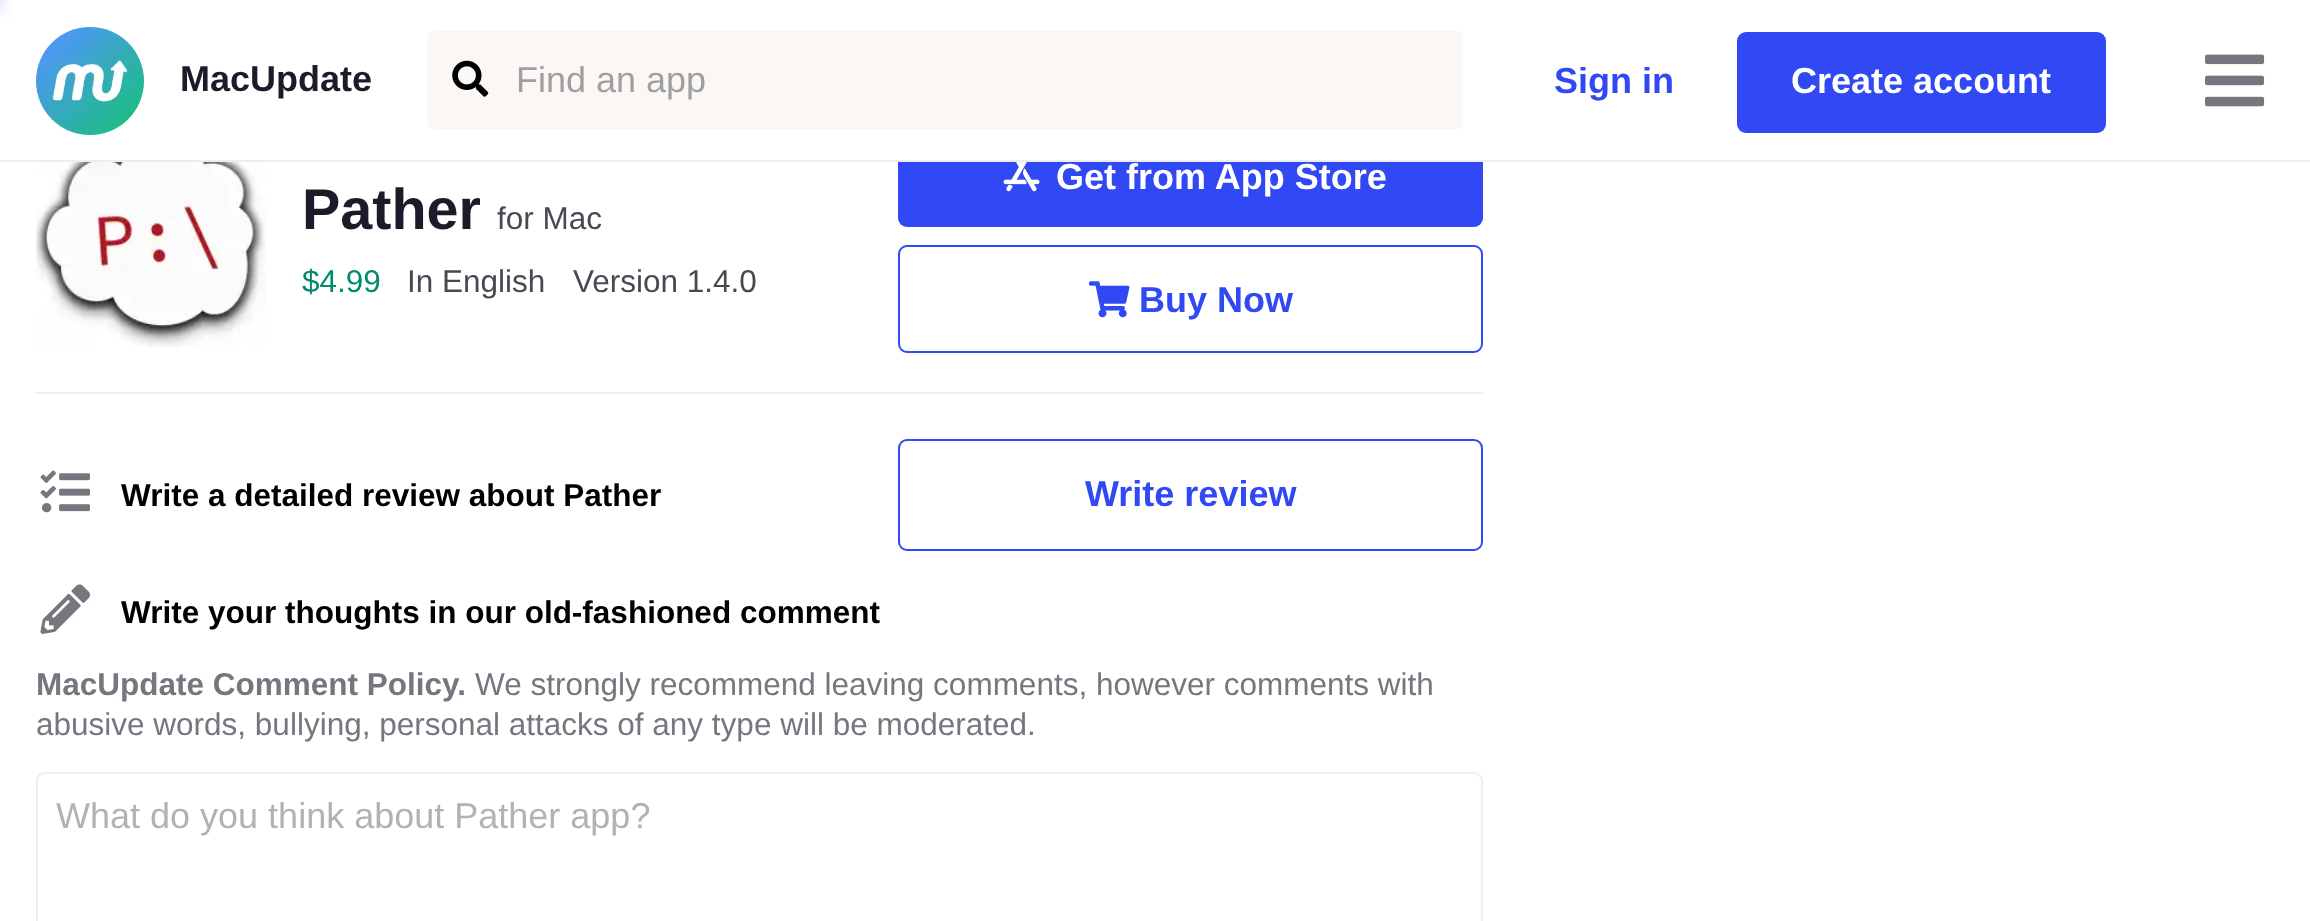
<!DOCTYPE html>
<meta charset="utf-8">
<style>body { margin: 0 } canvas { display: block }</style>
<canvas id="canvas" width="2310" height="921"></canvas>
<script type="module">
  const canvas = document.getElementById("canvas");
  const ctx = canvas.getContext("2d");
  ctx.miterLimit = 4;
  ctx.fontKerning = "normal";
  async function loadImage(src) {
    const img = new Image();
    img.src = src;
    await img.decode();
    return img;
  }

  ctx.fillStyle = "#ffffff";
  ctx.fillRect(0, 0, 2310, 921);
  ctx.fillStyle = "#3049f4";
  ctx.filter = "blur(11.5px)";
  ctx.beginPath();
  ctx.rect(-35, -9, 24, 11);
  ctx.fill();
  ctx.filter = "none";
  ctx.filter = "blur(11.5px)";
  ctx.beginPath();
  ctx.rect(-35, -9, 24, 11);
  ctx.fill();
  ctx.filter = "none";
  ctx.beginPath();
  ctx.roundRect(898, 122, 585, 105, 9);
  ctx.fill();
  ctx.fillStyle = "#ffffff";
  ctx.fillRect(898, 122, 585, 38);
  ctx.fillStyle = "#ededed";
  ctx.fillRect(0, 160, 2310, 2);
  ctx.drawImage(await loadImage("img1.png"), 36, 27, 108, 108);
  ctx.font = "bold 36px Liberation Sans";
  ctx.fillStyle = "#1b1b29";
  ctx.fillText("MacUpdate", 180, 91);
  ctx.fillStyle = "#fbf7f5";
  ctx.beginPath();
  ctx.roundRect(426, 30, 1038, 100, 8);
  ctx.fill();
  ctx.strokeStyle = "#ffffff";
  ctx.lineWidth = 2;
  ctx.stroke();
  ctx.drawImage(await loadImage("img2.png"), 452, 60, 37, 37);
  ctx.font = "36px Liberation Sans";
  ctx.fillStyle = "#9f9fa2";
  ctx.fillText("Find an app", 516, 92);
  ctx.font = "bold 36px Liberation Sans";
  ctx.fillStyle = "#3049f4";
  ctx.fillText("Sign in", 1554, 93);
  ctx.beginPath();
  ctx.roundRect(1737, 32, 369, 101, 9);
  ctx.fill();
  ctx.fillStyle = "#ffffff";
  ctx.fillText("Create account", 1791, 93);
  ctx.drawImage(await loadImage("img3.png"), 2205, 54, 60, 53);
  ctx.fillStyle = "#ededed";
  ctx.fillRect(36, 392, 1447, 2);
  ctx.drawImage(await loadImage("img4.png"), 36, 162, 230, 186);
  ctx.font = "bold 57.5px Liberation Sans";
  ctx.fillStyle = "#1b1b29";
  ctx.fillText("Pather", 302, 229);
  ctx.font = "31.5px Liberation Sans";
  ctx.fillStyle = "#494952";
  ctx.fillText("for Mac", 497, 229);
  ctx.fillStyle = "#008b6c";
  ctx.fillText("$4.99", 302, 292);
  ctx.fillStyle = "#494952";
  ctx.fillText("In English", 407, 292);
  ctx.fillText("Version 1.4.0", 573, 292);
  ctx.drawImage(await loadImage("img5.png"), 1003, 162, 37, 30);
  ctx.font = "bold 36px Liberation Sans";
  ctx.fillStyle = "#ffffff";
  ctx.fillText("Get from App Store", 1056, 189);
  ctx.beginPath();
  ctx.roundRect(899, 246, 583, 106, 8);
  ctx.strokeStyle = "#3049f4";
  ctx.stroke();
  ctx.drawImage(await loadImage("img6.png"), 1089, 281, 41, 37);
  ctx.fillStyle = "#3049f4";
  ctx.fillText("Buy Now", 1139, 312);
  ctx.drawImage(await loadImage("img7.png"), 40, 470, 50, 43);
  ctx.font = "bold 31.5px Liberation Sans";
  ctx.fillStyle = "#000000";
  ctx.fillText("Write a detailed review about Pather", 121, 506);
  ctx.beginPath();
  ctx.roundRect(899, 440, 583, 110, 8);
  ctx.stroke();
  ctx.font = "bold 36px Liberation Sans";
  ctx.fillStyle = "#3049f4";
  ctx.fillText("Write review", 1085, 506);
  ctx.drawImage(await loadImage("img8.png"), 40, 584, 50, 50);
  ctx.font = "bold 31.5px Liberation Sans";
  ctx.fillStyle = "#000000";
  ctx.fillText("Write your thoughts in our old-fashioned comment", 121, 623);
  ctx.fillStyle = "#76767f";
  ctx.fillText("MacUpdate Comment Policy.", 36, 695);
  ctx.font = "31.5px Liberation Sans";
  ctx.fillText("We strongly recommend leaving comments, however comments with", 475, 695);
  ctx.fillText("abusive words, bullying, personal attacks of any type will be moderated.", 36, 735);
  ctx.beginPath();
  ctx.roundRect(37, 773, 1445, 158, 8);
  ctx.strokeStyle = "#eeeeee";
  ctx.stroke();
  ctx.font = "36px Liberation Sans";
  ctx.fillStyle = "#b2b2b5";
  ctx.fillText("What do you think about Pather app?", 56, 828);
</script>
